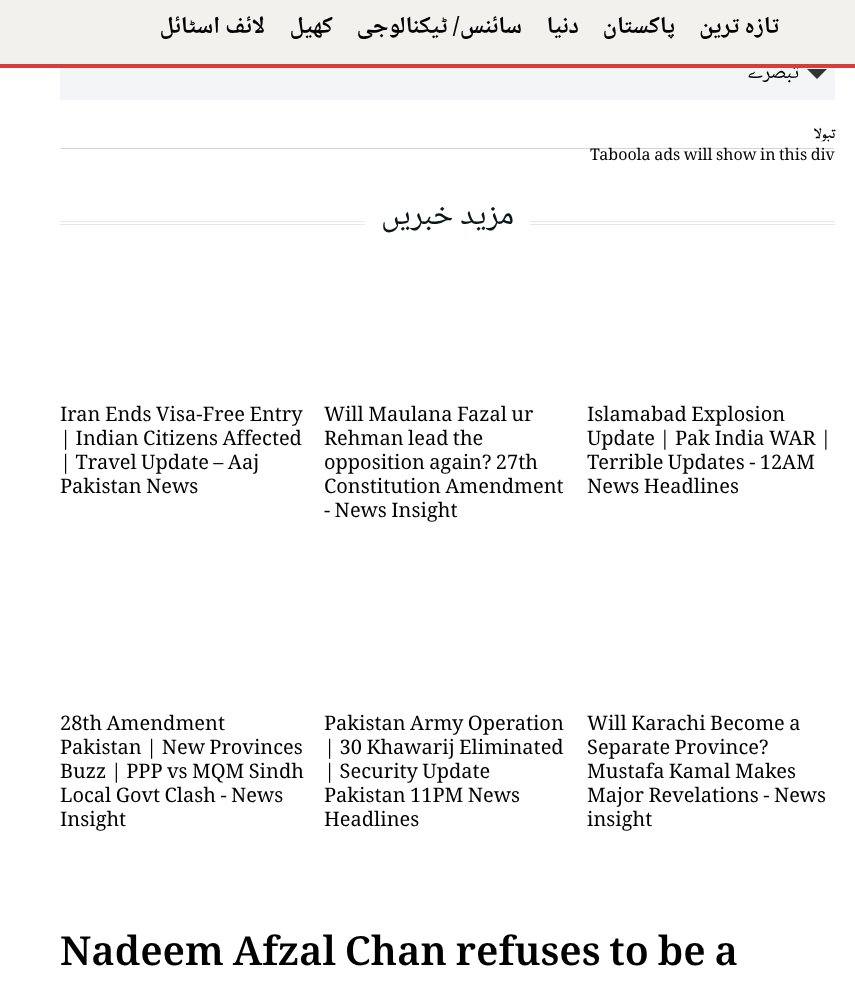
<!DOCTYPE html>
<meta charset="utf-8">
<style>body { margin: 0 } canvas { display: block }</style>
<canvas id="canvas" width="855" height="986"></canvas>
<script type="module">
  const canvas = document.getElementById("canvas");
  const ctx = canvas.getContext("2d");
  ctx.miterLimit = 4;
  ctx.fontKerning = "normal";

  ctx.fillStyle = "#ffffff";
  ctx.fillRect(0, 0, 855, 986);
  ctx.fillStyle = "#f3f1ed";
  ctx.fillRect(0, 0, 855, 64);
  ctx.fillStyle = "#f4f5f7";
  ctx.fillRect(60, 68, 775, 32);
  ctx.direction = "rtl";
  ctx.font = "20px Noto Naskh Arabic";
  ctx.fillStyle = "#000000";
  ctx.fillText("تبصرے", 799, 78);
  ctx.fillStyle = "#d93d39";
  ctx.fillRect(0, 64, 855, 4);
  ctx.font = "bold 24px Noto Naskh Arabic";
  ctx.fillStyle = "#000000";
  ctx.fillText("لائف اسٹائل", 265, 33);
  ctx.fillText("کھیل", 333, 33);
  ctx.save();
  ctx.beginPath();
  ctx.rect(76, 16, 720, 32);
  ctx.clip();
  ctx.fillText("سائنس/ ٹیکنالوجی", 522, 33);
  ctx.restore();
  ctx.fillText("دنیا", 579, 33);
  ctx.fillText("پاکستان", 675, 33);
  ctx.fillText("تازہ ترین", 779, 33);
  ctx.fillStyle = "#333333";
  ctx.beginPath();
  ctx.moveTo(807, 69);
  ctx.lineTo(827, 69);
  ctx.lineTo(817, 79);
  ctx.closePath();
  ctx.fill();
  ctx.fillStyle = "#d2d6dc";
  ctx.fillRect(61, 148, 773, 1);
  ctx.font = "16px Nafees";
  ctx.fillStyle = "#000000";
  ctx.fillText("تبولا", 835, 138);
  ctx.direction = "ltr";
  ctx.font = "16px Noto Naskh Arabic";
  ctx.fillText("Taboola ads will show in this div", 590, 160);
  ctx.fillStyle = "#e5e7eb";
  ctx.fillRect(60, 221, 775, 1);
  ctx.fillRect(60, 224, 775, 1);
  ctx.fillStyle = "#ffffff";
  ctx.fillRect(365, 221, 165, 4);
  ctx.direction = "rtl";
  ctx.font = "32px Noto Naskh Arabic";
  ctx.fillStyle = "#081717";
  ctx.fillText("مزید خبریں", 514, 224);
  ctx.direction = "ltr";
  ctx.font = "20px Noto Naskh Arabic";
  ctx.fillStyle = "#000000";
  ctx.fillText("Iran Ends Visa-Free Entry", 60, 421);
  ctx.fillText("| Indian Citizens Affected", 60, 445);
  ctx.fillText("| Travel Update – Aaj", 60, 469);
  ctx.fillText("Pakistan News", 60, 493);
  ctx.fillText("Will Maulana Fazal ur", 324, 421);
  ctx.fillText("Rehman lead the", 324, 445);
  ctx.fillText("opposition again? 27th", 324, 469);
  ctx.fillText("Constitution Amendment", 324, 493);
  ctx.fillText("- News Insight", 324, 517);
  ctx.fillText("Islamabad Explosion", 587, 421);
  ctx.fillText("Update | Pak India WAR |", 587, 445);
  ctx.fillText("Terrible Updates - 12AM", 587, 469);
  ctx.fillText("News Headlines", 587, 493);
  ctx.fillText("28th Amendment", 60, 730);
  ctx.fillText("Pakistan | New Provinces", 60, 754);
  ctx.fillText("Buzz | PPP vs MQM Sindh", 60, 778);
  ctx.fillText("Local Govt Clash - News", 60, 802);
  ctx.fillText("Insight", 60, 826);
  ctx.fillText("Pakistan Army Operation", 324, 730);
  ctx.fillText("| 30 Khawarij Eliminated", 324, 754);
  ctx.fillText("| Security Update", 324, 778);
  ctx.fillText("Pakistan 11PM News", 324, 802);
  ctx.fillText("Headlines", 324, 826);
  ctx.fillText("Will Karachi Become a", 587, 730);
  ctx.fillText("Separate Province?", 587, 754);
  ctx.fillText("Mustafa Kamal Makes", 587, 778);
  ctx.fillText("Major Revelations - News", 587, 802);
  ctx.fillText("insight", 587, 826);
  ctx.font = "600 40px Noto Naskh Arabic";
  ctx.fillText("Nadeem Afzal Chan refuses to be a", 60, 965);
</script>
